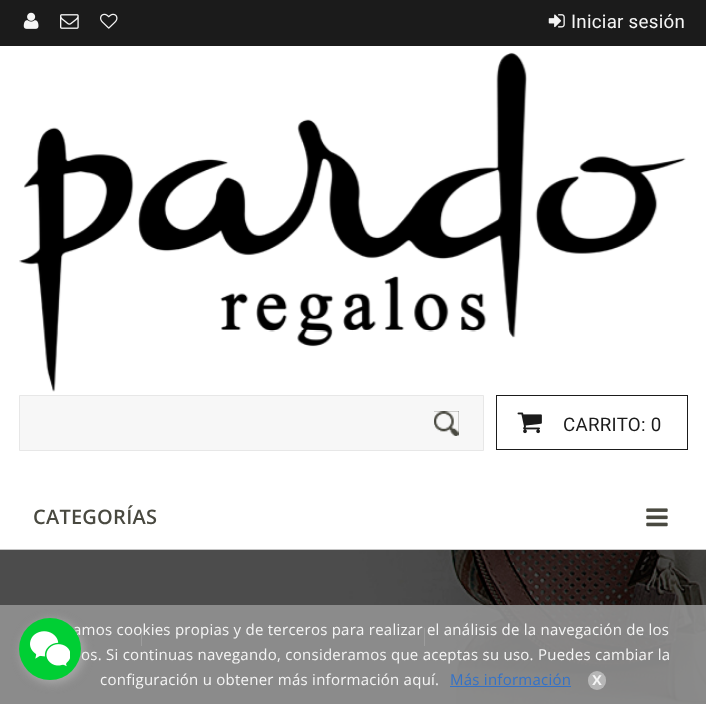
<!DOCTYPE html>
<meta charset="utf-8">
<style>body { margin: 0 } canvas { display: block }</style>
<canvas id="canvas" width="706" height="704"></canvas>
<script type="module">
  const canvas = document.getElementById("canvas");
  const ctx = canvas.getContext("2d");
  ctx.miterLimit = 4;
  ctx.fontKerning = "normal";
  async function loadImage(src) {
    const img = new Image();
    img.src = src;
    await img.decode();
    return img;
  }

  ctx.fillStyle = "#ffffff";
  ctx.fillRect(0, 0, 706, 704);
  ctx.drawImage(await loadImage("img9.png"), 0, 550, 706, 154);
  ctx.fillStyle = "#dddddd";
  ctx.fillRect(0, 549, 706, 1);
  ctx.fillStyle = "rgba(0, 0, 0, 0.1)";
  ctx.filter = "blur(0.5px)";
  ctx.beginPath();
  ctx.rect(0, 1, 706, 549);
  ctx.fill();
  ctx.filter = "none";
  ctx.fillStyle = "#ffffff";
  ctx.fillRect(0, 46, 706, 503);
  ctx.fillStyle = "#1b1b1b";
  ctx.fillRect(0, 0, 706, 46);
  ctx.drawImage(await loadImage("img1.png"), 23, 12, 16, 17);
  ctx.drawImage(await loadImage("img2.png"), 60, 14, 19, 15);
  ctx.drawImage(await loadImage("img3.png"), 100, 13, 18, 16);
  ctx.drawImage(await loadImage("img4.png"), 548, 14, 17, 14);
  ctx.letterSpacing = "0.25px";
  ctx.font = "18.75px Roboto";
  ctx.fillStyle = "#f5f5f5";
  ctx.fillText("Iniciar sesión", 571, 28);
  ctx.drawImage(await loadImage("img5.png"), 19, 52, 667, 340);
  ctx.fillStyle = "#f7f7f7";
  ctx.beginPath();
  ctx.rect(19.5, 395.5, 464, 55);
  ctx.fill();
  ctx.strokeStyle = "#e7e7e7";
  ctx.stroke();
  ctx.fillStyle = "#494940";
  ctx.fillRect(434, 411, 25, 25);
  ctx.drawImage(await loadImage("img6.png"), 434, 411, 25, 25);
  ctx.strokeStyle = "#1b1b1b";
  ctx.strokeRect(496.5, 395.5, 191, 54);
  ctx.drawImage(await loadImage("img7.png"), 517, 412, 25, 22);
  ctx.fillStyle = "#1b1b1b";
  ctx.fillText("CARRITO: 0", 563, 431);
  ctx.font = "600 20px Open Sans";
  ctx.fillStyle = "#494940";
  ctx.fillText("CATEGORÍAS", 33, 524);
  ctx.drawImage(await loadImage("img8.png"), 646, 508, 22, 19);
  ctx.fillStyle = "#ffffff";
  ctx.fillRect(141, 628, 1, 18);
  ctx.fillRect(424, 628, 1, 18);
  ctx.fillStyle = "rgba(146, 146, 146, 0.9)";
  ctx.fillRect(0, 605, 706, 99);
  ctx.fillStyle = "#aaaaaa";
  ctx.filter = "blur(5px)";
  ctx.beginPath();
  ctx.roundRect(21, 620, 63, 63, 31.5);
  ctx.fill();
  ctx.filter = "none";
  ctx.font = "15px Open Sans";
  ctx.fillStyle = "#f5f5f5";
  ctx.fillText("amos cookies propias y de terceros para realizar el análisis de la navegación de los", 73, 635);
  ctx.fillStyle = "#00cf34";
  ctx.beginPath();
  ctx.arc(50, 649, 31, 0, Math.PI * 2);
  ctx.fill();
  ctx.drawImage(await loadImage("img10.png"), 30, 631, 40, 36);
  ctx.fillStyle = "#f5f5f5";
  ctx.fillText("os. Si continuas navegando, consideramos que aceptas su uso. Puedes cambiar la", 81, 660);
  ctx.fillText("configuración u obtener más información aquí.", 100, 685);
  ctx.fillStyle = "#3372c8";
  ctx.fillText("Más información", 450, 685);
  ctx.fillStyle = "rgba(42, 111, 207, 0.9)";
  ctx.fillRect(450, 686, 121, 1);
  ctx.fillStyle = "rgba(187, 187, 187, 0.9)";
  ctx.beginPath();
  ctx.roundRect(588, 671, 18, 19, 9);
  ctx.fill();
  ctx.font = "600 18px Open Sans";
  ctx.fillStyle = "#f5f5f5";
  ctx.fillText("x", 592, 685);
</script>
